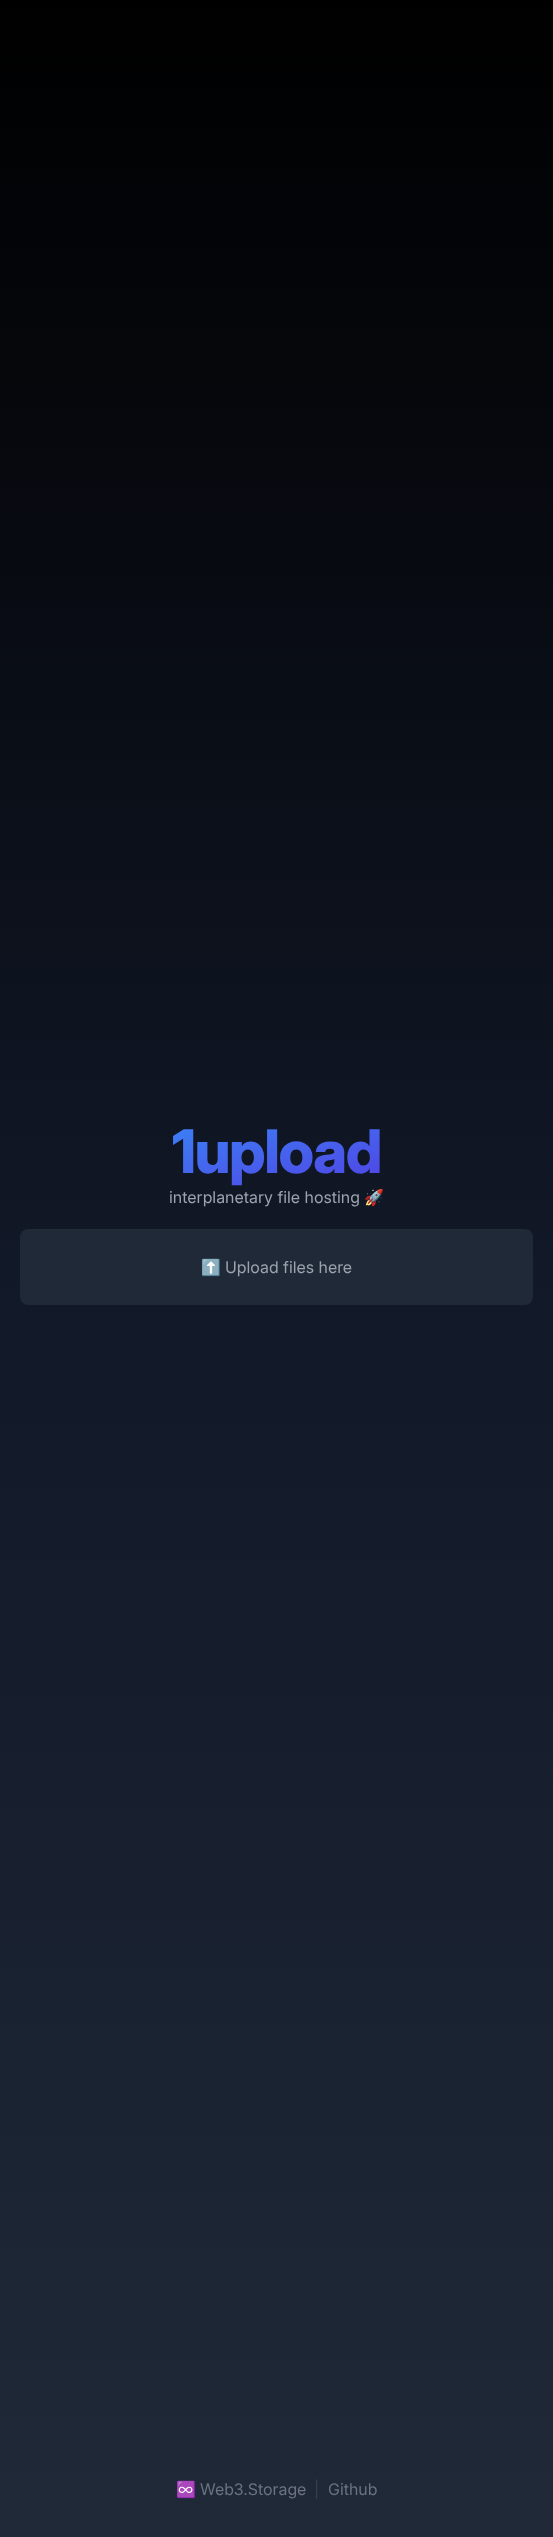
<!DOCTYPE html>
<meta charset="utf-8">
<style>body { margin: 0 } canvas { display: block }</style>
<canvas id="canvas" width="553" height="2537"></canvas>
<script type="module">
  const canvas = document.getElementById("canvas");
  const ctx = canvas.getContext("2d");
  ctx.miterLimit = 4;
  ctx.fontKerning = "normal";
  let gradient;

  ctx.fillStyle = "#ffffff";
  ctx.fillRect(0, 0, 553, 2537);
  gradient = ctx.createLinearGradient(277, 2537, 277, 0);
  gradient.addColorStop(0, "#1f2937");
  gradient.addColorStop(0.5, "#111827");
  gradient.addColorStop(1, "#000000");
  ctx.fillStyle = gradient;
  ctx.fillRect(0, 0, 553, 2537);
  ctx.letterSpacing = "-1.5px";
  ctx.font = "800 60px Inter";
  gradient = ctx.createLinearGradient(261, 1095, 292, 1206);
  gradient.addColorStop(0, "#3b82f6");
  gradient.addColorStop(1, "#4f46e5");
  ctx.fillStyle = gradient;
  ctx.fillText("1upload", 172, 1173);
  ctx.letterSpacing = "0px";
  ctx.font = "16px Inter";
  ctx.fillStyle = "#9ca3af";
  ctx.fillText("interplanetary file hosting", 169, 1203);
  ctx.font = "16px Noto Color Emoji";
  ctx.fillText("🚀", 364, 1203);
  ctx.fillStyle = "#1f2937";
  ctx.beginPath();
  ctx.roundRect(20, 1229, 513, 8, [8, 8, 0, 0]);
  ctx.fill();
  ctx.fillRect(20, 1237, 513, 60);
  ctx.beginPath();
  ctx.roundRect(20, 1297, 513, 8, [0, 0, 8, 8]);
  ctx.fill();
  ctx.font = "16px 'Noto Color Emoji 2'";
  ctx.fillStyle = "#ffffff";
  ctx.fillText("⬆️", 201, 1273);
  ctx.font = "16px Inter";
  ctx.fillStyle = "#9ca3af";
  ctx.fillText("Upload files here", 225, 1273);
  ctx.font = "16px 'Noto Color Emoji 2'";
  ctx.fillStyle = "#6b7280";
  ctx.fillText("♾️", 176, 2495);
  ctx.font = "16px Inter";
  ctx.fillText("Web3.Storage", 200, 2495);
  ctx.fillStyle = "#374151";
  ctx.fillText("|", 314, 2495);
  ctx.fillStyle = "#6b7280";
  ctx.fillText("Github", 328, 2495);
</script>
